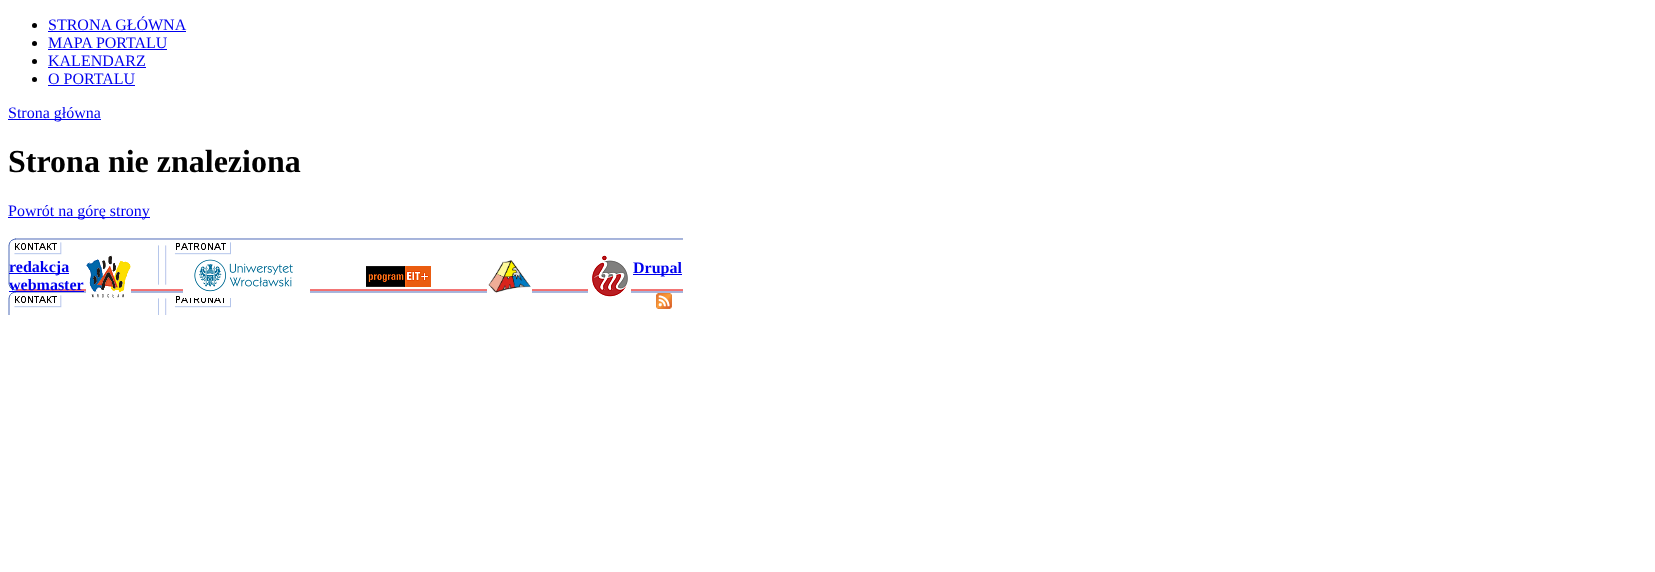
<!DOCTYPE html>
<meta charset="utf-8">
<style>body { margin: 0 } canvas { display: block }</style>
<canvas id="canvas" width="1655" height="572"></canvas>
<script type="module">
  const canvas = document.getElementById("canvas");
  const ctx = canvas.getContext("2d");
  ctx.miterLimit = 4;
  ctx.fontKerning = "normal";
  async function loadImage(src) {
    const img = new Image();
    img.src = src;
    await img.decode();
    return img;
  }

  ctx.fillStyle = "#ffffff";
  ctx.fillRect(0, 0, 1655, 572);
  ctx.fillStyle = "#000000";
  ctx.beginPath();
  ctx.arc(34.5, 25.5, 2.5, 0, Math.PI * 2);
  ctx.fill();
  ctx.font = "16px Liberation Serif";
  ctx.fillStyle = "#0000ee";
  ctx.fillText("STRONA GŁÓWNA", 48, 30);
  ctx.fillRect(48, 31, 138, 1);
  ctx.fillStyle = "#000000";
  ctx.beginPath();
  ctx.arc(34.5, 43.5, 2.5, 0, Math.PI * 2);
  ctx.fill();
  ctx.fillStyle = "#0000ee";
  ctx.fillText("MAPA PORTALU", 48, 48);
  ctx.fillRect(48, 49, 119, 1);
  ctx.fillStyle = "#000000";
  ctx.beginPath();
  ctx.arc(34.5, 61.5, 2.5, 0, Math.PI * 2);
  ctx.fill();
  ctx.fillStyle = "#0000ee";
  ctx.fillText("KALENDARZ", 48, 66);
  ctx.fillRect(48, 67, 98, 1);
  ctx.fillStyle = "#000000";
  ctx.beginPath();
  ctx.arc(34.5, 79.5, 2.5, 0, Math.PI * 2);
  ctx.fill();
  ctx.fillStyle = "#0000ee";
  ctx.fillText("O PORTALU", 48, 84);
  ctx.fillRect(48, 85, 87, 1);
  ctx.fillRect(8, 119, 93, 1);
  ctx.fillText("Strona główna", 8, 118);
  ctx.font = "bold 32px Liberation Serif";
  ctx.fillStyle = "#000000";
  ctx.fillText("Strona nie znaleziona", 8, 172);
  ctx.fillStyle = "#0000ee";
  ctx.fillRect(8, 217, 142, 1);
  ctx.font = "16px Liberation Serif";
  ctx.fillText("Powrót na górę strony", 8, 216);
  ctx.drawImage(await loadImage("img1.png"), 8, 238, 675, 77);
  ctx.fillRect(9, 273, 60, 1);
  ctx.font = "bold 16px Liberation Serif";
  ctx.fillText("redakcja", 9, 272);
  ctx.fillText("webmaster", 9, 290);
  ctx.fillRect(9, 291, 75, 1);
  ctx.drawImage(await loadImage("img2.png"), 86, 255, 45, 43);
  ctx.drawImage(await loadImage("img3.png"), 183, 259, 127, 39);
  ctx.drawImage(await loadImage("img4.png"), 366, 266, 65, 21);
  ctx.drawImage(await loadImage("img5.png"), 487, 260, 45, 33);
  ctx.drawImage(await loadImage("img6.png"), 588, 255, 43, 42);
  ctx.fillRect(633, 274, 49, 1);
  ctx.fillText("Drupal", 633, 273);
  ctx.drawImage(await loadImage("img7.png"), 656, 293, 16, 16);
</script>
